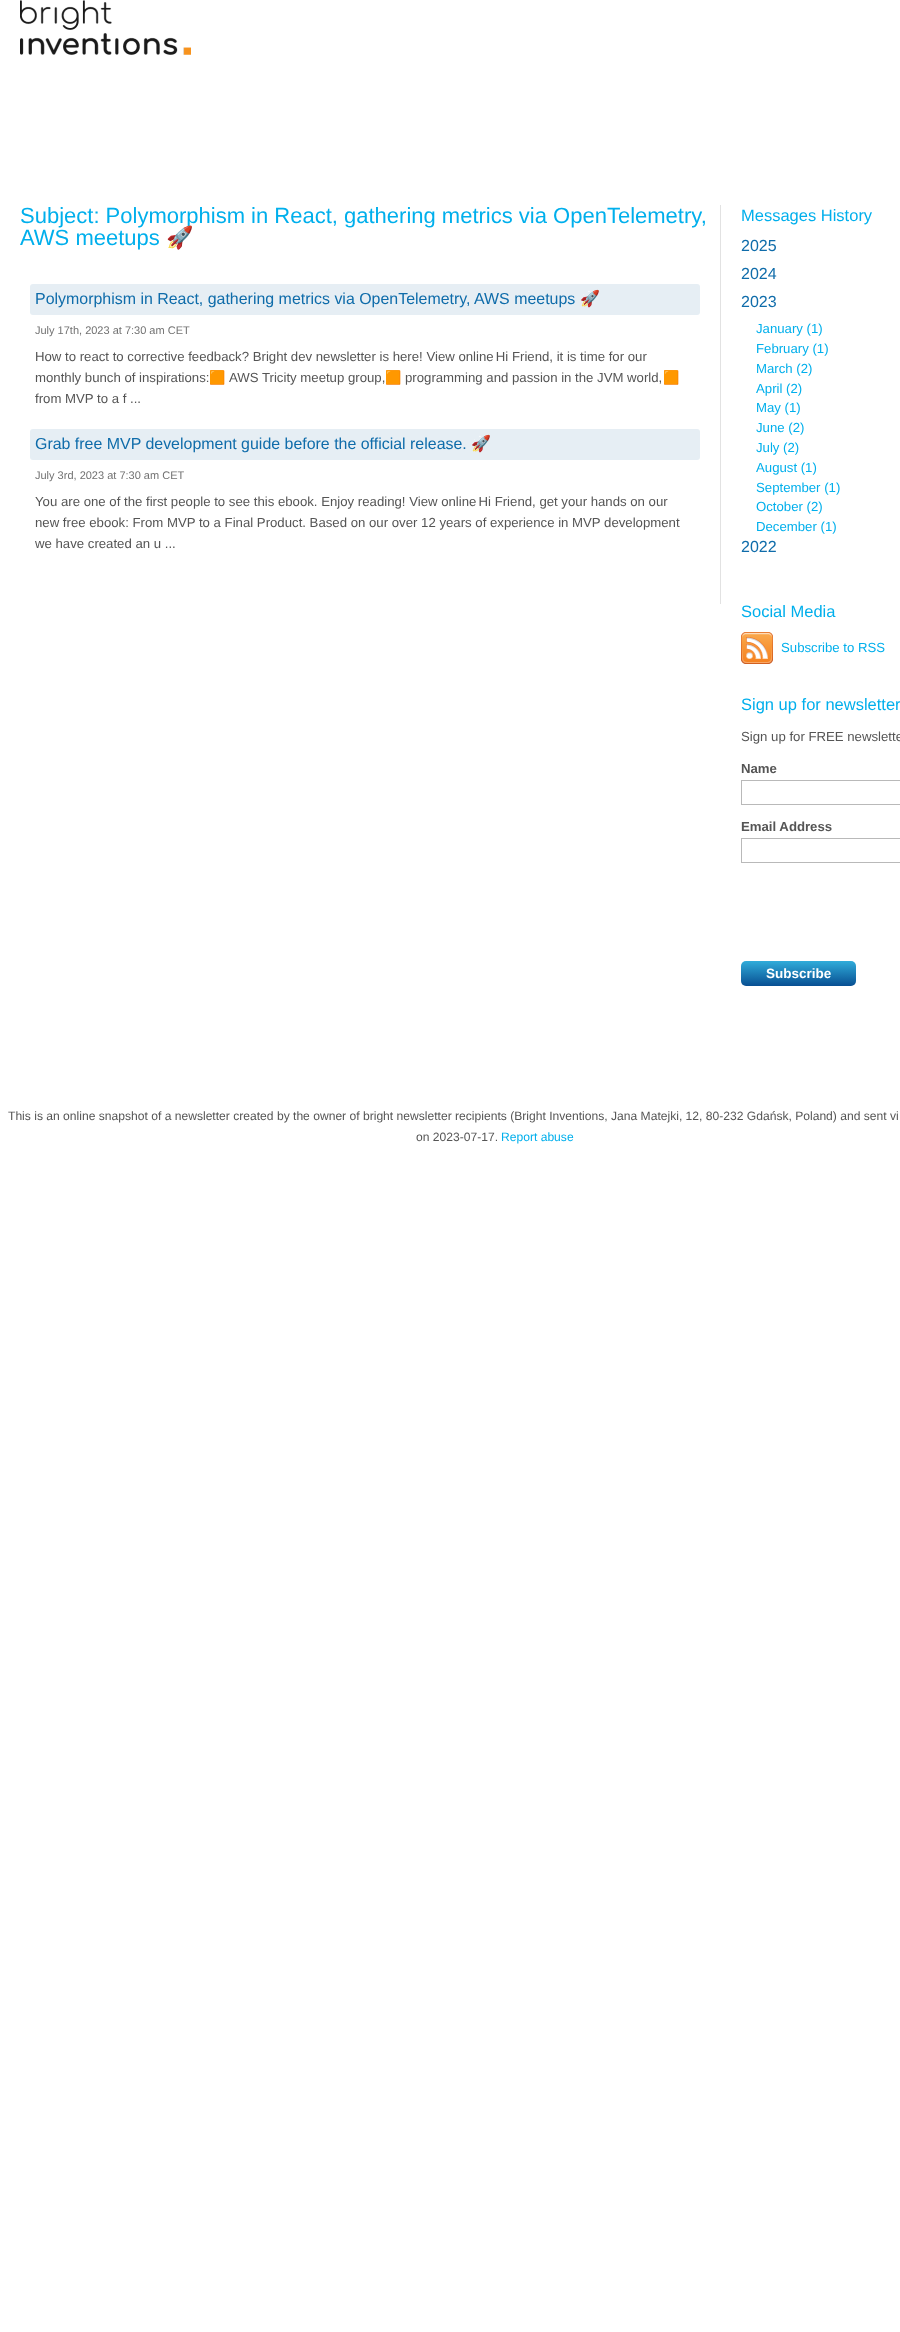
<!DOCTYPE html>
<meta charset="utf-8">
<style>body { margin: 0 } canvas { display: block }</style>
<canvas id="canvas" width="900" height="2332"></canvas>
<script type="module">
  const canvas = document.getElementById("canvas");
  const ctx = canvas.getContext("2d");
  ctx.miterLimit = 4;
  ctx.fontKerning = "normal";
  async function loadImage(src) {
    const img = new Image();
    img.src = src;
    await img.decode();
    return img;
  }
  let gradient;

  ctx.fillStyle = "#ffffff";
  ctx.fillRect(0, 0, 900, 2332);
  ctx.drawImage(await loadImage("img1.png"), 20, 0, 171, 55);
  ctx.fillStyle = "#e2e2e2";
  ctx.fillRect(720, 205, 1, 399);
  ctx.font = "22px Liberation Sans";
  ctx.fillStyle = "#00afec";
  ctx.fillText("Subject: Polymorphism in React, gathering metrics via OpenTelemetry,", 20, 223);
  ctx.fillText("AWS meetups", 20, 245);
  ctx.font = "22px Noto Color Emoji";
  ctx.fillText("🚀", 166, 245);
  ctx.fillStyle = "#e6eef4";
  ctx.beginPath();
  ctx.roundRect(30, 284, 670, 31, 3);
  ctx.fill();
  ctx.font = "15.95px Liberation Sans";
  ctx.fillStyle = "#0f6caa";
  ctx.fillText("Polymorphism in React, gathering metrics via OpenTelemetry, AWS meetups", 35, 304);
  ctx.font = "15.95px Noto Color Emoji";
  ctx.fillText("🚀", 580, 304);
  ctx.font = "11px Liberation Sans";
  ctx.fillStyle = "#727272";
  ctx.fillText("July 17th, 2023 at 7:30 am CET", 35, 334);
  ctx.font = "13.2px Liberation Sans";
  ctx.fillStyle = "#555555";
  ctx.fillText("How to react to corrective feedback? Bright dev newsletter is here! View online  Hi Friend, it is time for our", 35, 361);
  ctx.fillText("monthly bunch of inspirations:", 35, 382);
  ctx.font = "13.2px Noto Color Emoji";
  ctx.fillText("🟧", 209, 382);
  ctx.font = "13.2px Liberation Sans";
  ctx.fillText("AWS Tricity meetup group,", 229, 382);
  ctx.font = "13.2px Noto Color Emoji";
  ctx.fillText("🟧", 385, 382);
  ctx.font = "13.2px Liberation Sans";
  ctx.fillText("programming and passion in the JVM world,", 405, 382);
  ctx.font = "13.2px Noto Color Emoji";
  ctx.fillText("🟧", 663, 382);
  ctx.font = "13.2px Liberation Sans";
  ctx.fillText("from MVP to a f ...", 35, 403);
  ctx.fillStyle = "#e6eef4";
  ctx.beginPath();
  ctx.roundRect(30, 429, 670, 31, 3);
  ctx.fill();
  ctx.font = "15.95px Liberation Sans";
  ctx.fillStyle = "#0f6caa";
  ctx.fillText("Grab free MVP development guide before the official release.", 35, 449);
  ctx.font = "15.95px Noto Color Emoji";
  ctx.fillText("🚀", 471, 449);
  ctx.font = "11px Liberation Sans";
  ctx.fillStyle = "#727272";
  ctx.fillText("July 3rd, 2023 at 7:30 am CET", 35, 479);
  ctx.font = "13.2px Liberation Sans";
  ctx.fillStyle = "#555555";
  ctx.fillText("You are one of the first people to see this ebook. Enjoy reading! View online  Hi Friend, get your hands on our", 35, 506);
  ctx.fillText("new free ebook: From MVP to a Final Product. Based on our over 12 years of experience in MVP development", 35, 527);
  ctx.fillText("we have created an u ...", 35, 548);
  ctx.font = "16.5px Liberation Sans";
  ctx.fillStyle = "#00afec";
  ctx.fillText("Messages History", 741, 221);
  ctx.font = "16px Liberation Sans";
  ctx.fillStyle = "#0f6caa";
  ctx.fillText("2025", 741, 251);
  ctx.fillText("2024", 741, 279);
  ctx.fillText("2023", 741, 307);
  ctx.font = "13.2px Liberation Sans";
  ctx.fillStyle = "#00afec";
  ctx.fillText("January (1)", 756, 333);
  ctx.fillText("February (1)", 756, 353);
  ctx.fillText("March (2)", 756, 373);
  ctx.fillText("April (2)", 756, 393);
  ctx.fillText("May (1)", 756, 412);
  ctx.fillText("June (2)", 756, 432);
  ctx.fillText("July (2)", 756, 452);
  ctx.fillText("August (1)", 756, 472);
  ctx.fillText("September (1)", 756, 492);
  ctx.fillText("October (2)", 756, 511);
  ctx.fillText("December (1)", 756, 531);
  ctx.font = "16px Liberation Sans";
  ctx.fillStyle = "#0f6caa";
  ctx.fillText("2022", 741, 552);
  ctx.font = "16.5px Liberation Sans";
  ctx.fillStyle = "#00afec";
  ctx.fillText("Social Media", 741, 617);
  ctx.drawImage(await loadImage("img2.png"), 741, 632, 32, 32);
  ctx.font = "13.2px Liberation Sans";
  ctx.fillText("Subscribe to RSS", 781, 652);
  ctx.font = "16.5px Liberation Sans";
  ctx.fillText("Sign up for newsletter", 741, 710);
  ctx.font = "13.2px Liberation Sans";
  ctx.fillStyle = "#555555";
  ctx.fillText("Sign up for FREE newslette", 741, 741);
  ctx.font = "bold 13.2px Liberation Sans";
  ctx.fillText("Name", 741, 773);
  ctx.strokeStyle = "#b9b9b9";
  ctx.strokeRect(741.5, 780.5, 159, 24);
  ctx.fillText("Email Address", 741, 831);
  ctx.strokeRect(741.5, 838.5, 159, 24);
  gradient = ctx.createLinearGradient(741, 961, 741, 986);
  gradient.addColorStop(0, "#30acda");
  gradient.addColorStop(1, "#084f92");
  ctx.fillStyle = gradient;
  ctx.beginPath();
  ctx.roundRect(741, 961, 115, 25, 5);
  ctx.fill();
  ctx.font = "bold 13.5px Liberation Sans";
  ctx.fillStyle = "#ffffff";
  ctx.fillText("Subscribe", 766, 978);
  ctx.font = "12.1px Liberation Sans";
  ctx.fillStyle = "#555555";
  ctx.fillText("This is an online snapshot of a newsletter created by the owner of bright newsletter recipients (Bright Inventions, Jana Matejki, 12, 80-232 Gdańsk, Poland) and sent vi", 8, 1120);
  ctx.fillText("on 2023-07-17.", 416, 1141);
  ctx.fillStyle = "#00afec";
  ctx.fillText("Report abuse", 501, 1141);
</script>
